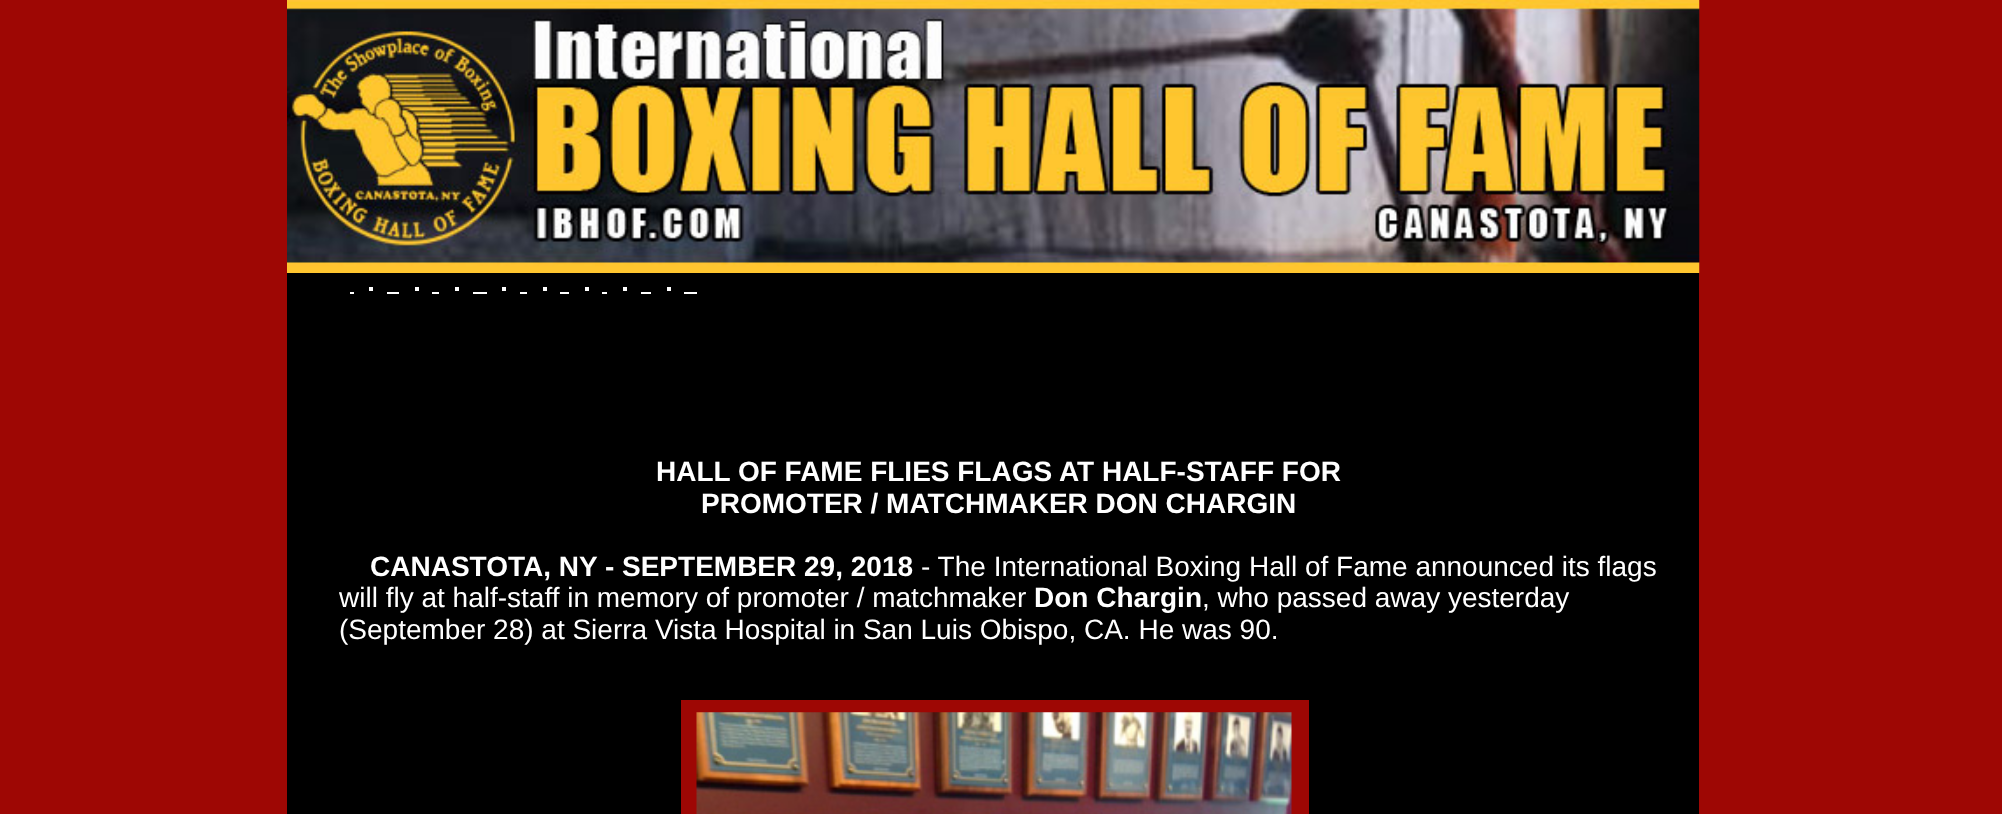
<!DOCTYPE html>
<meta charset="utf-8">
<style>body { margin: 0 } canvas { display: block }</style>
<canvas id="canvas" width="2002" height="814"></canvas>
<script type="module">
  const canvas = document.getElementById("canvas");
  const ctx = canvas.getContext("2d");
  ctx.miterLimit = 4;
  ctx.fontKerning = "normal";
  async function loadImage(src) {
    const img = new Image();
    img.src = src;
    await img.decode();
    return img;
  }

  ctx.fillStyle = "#9e0704";
  ctx.fillRect(0, 0, 2002, 814);
  ctx.drawImage(await loadImage("img1.png"), 287, 0, 1413, 273);
  ctx.fillStyle = "#000000";
  ctx.fillRect(287, 273, 1412, 541);
  ctx.fillStyle = "#ffffff";
  ctx.fillRect(369, 287, 4, 4);
  ctx.fillRect(415, 287, 4, 4);
  ctx.fillRect(455, 287, 4, 4);
  ctx.fillRect(502, 287, 4, 4);
  ctx.fillRect(543, 287, 4, 4);
  ctx.fillRect(585, 287, 4, 4);
  ctx.fillRect(623, 287, 4, 4);
  ctx.fillRect(667, 287, 4, 4);
  ctx.fillRect(350, 292, 4, 2);
  ctx.fillRect(387, 292, 12, 2);
  ctx.fillRect(432, 292, 7, 2);
  ctx.fillRect(473, 292, 14, 2);
  ctx.fillRect(520, 292, 7, 2);
  ctx.fillRect(560, 292, 9, 2);
  ctx.fillRect(602, 292, 5, 2);
  ctx.fillRect(641, 292, 10, 2);
  ctx.fillRect(684, 292, 13, 2);
  ctx.font = "bold 28px Liberation Sans";
  ctx.fillText("HALL OF FAME FLIES FLAGS AT HALF-STAFF FOR", 656, 481);
  ctx.fillText("PROMOTER / MATCHMAKER DON CHARGIN", 701, 513);
  ctx.fillText("CANASTOTA, NY - SEPTEMBER 29, 2018", 370, 576);
  ctx.font = "28px Liberation Sans";
  ctx.fillText("- The International Boxing Hall of Fame announced its flags", 921, 576);
  ctx.fillText("will fly at half-staff in memory of promoter / matchmaker", 339, 607);
  ctx.font = "bold 28px Liberation Sans";
  ctx.fillText("Don Chargin", 1034, 607);
  ctx.font = "28px Liberation Sans";
  ctx.fillText(", who passed away yesterday", 1202, 607);
  ctx.fillText("(September 28) at Sierra Vista Hospital in San Luis Obispo, CA. He was 90.", 339, 639);
  ctx.fillStyle = "#9e0704";
  ctx.fillRect(681, 700, 628, 114);
  ctx.drawImage(await loadImage("img2.png"), 696, 712, 596, 102);
</script>
